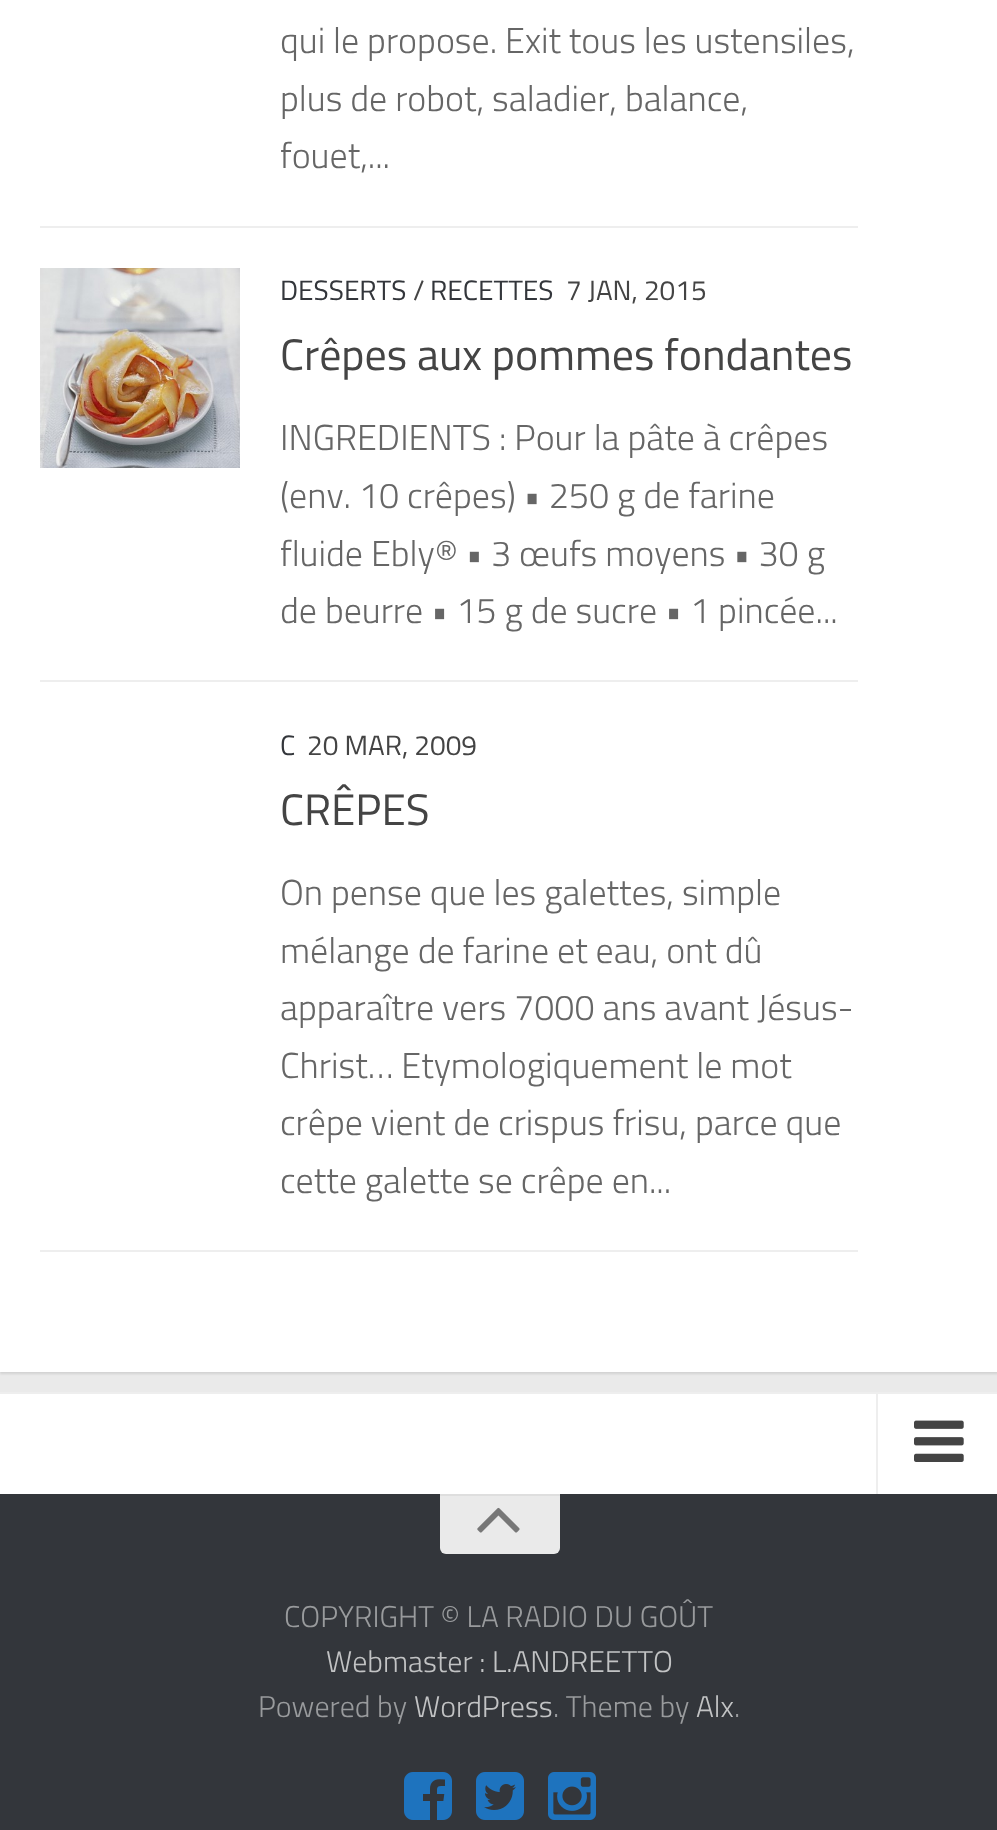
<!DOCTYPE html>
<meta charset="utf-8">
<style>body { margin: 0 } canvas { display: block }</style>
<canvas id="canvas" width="997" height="1830"></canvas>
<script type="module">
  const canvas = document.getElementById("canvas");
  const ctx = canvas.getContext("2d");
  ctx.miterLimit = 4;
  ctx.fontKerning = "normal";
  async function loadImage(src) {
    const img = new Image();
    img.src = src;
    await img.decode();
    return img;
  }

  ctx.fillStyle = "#eaeaea";
  ctx.fillRect(0, 0, 997, 1830);
  ctx.fillStyle = "rgba(0, 0, 0, 0.1)";
  ctx.filter = "blur(1px)";
  ctx.beginPath();
  ctx.rect(0, -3, 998, 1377);
  ctx.fill();
  ctx.filter = "none";
  ctx.fillStyle = "#ffffff";
  ctx.fillRect(0, 0, 997, 1372);
  ctx.fillStyle = "#eeeeee";
  ctx.fillRect(40, 226, 818, 2);
  ctx.font = "300 36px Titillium";
  ctx.fillStyle = "#666666";
  ctx.fillText("qui le propose. Exit tous les ustensiles,", 280, 53);
  ctx.fillText("plus de robot, saladier, balance,", 280, 111);
  ctx.fillText("fouet,...", 280, 168);
  ctx.fillStyle = "#eeeeee";
  ctx.fillRect(40, 680, 818, 2);
  ctx.drawImage(await loadImage("img1.png"), 40, 268, 200, 200);
  ctx.font = "28px Titillium";
  ctx.fillStyle = "#33363b";
  ctx.fillText("DESSERTS", 280, 300);
  ctx.fillStyle = "#444444";
  ctx.fillText("/", 413, 300);
  ctx.fillStyle = "#33363b";
  ctx.fillText("RECETTES", 430, 300);
  ctx.fillStyle = "#444444";
  ctx.fillText("7 JAN, 2015", 566, 300);
  ctx.font = "44px Titillium";
  ctx.fillText("Crêpes aux pommes fondantes", 280, 370);
  ctx.font = "300 36px Titillium";
  ctx.fillStyle = "#666666";
  ctx.fillText("INGREDIENTS : Pour la pâte à crêpes", 280, 450);
  ctx.fillText("(env. 10 crêpes) • 250 g de farine", 280, 508);
  ctx.fillText("fluide Ebly® • 3 œufs moyens • 30 g", 280, 566);
  ctx.fillText("de beurre • 15 g de sucre • 1 pincée...", 280, 623);
  ctx.fillStyle = "#eeeeee";
  ctx.fillRect(40, 1250, 818, 2);
  ctx.font = "28px Titillium";
  ctx.fillStyle = "#33363b";
  ctx.fillText("C", 280, 755);
  ctx.fillStyle = "#444444";
  ctx.fillText("20 MAR, 2009", 307, 755);
  ctx.font = "44px Titillium";
  ctx.fillText("CRÊPES", 280, 825);
  ctx.font = "300 36px Titillium";
  ctx.fillStyle = "#666666";
  ctx.fillText("On pense que les galettes, simple", 280, 905);
  ctx.fillText("mélange de farine et eau, ont dû", 280, 963);
  ctx.fillText("apparaître vers 7000 ans avant Jésus-", 280, 1020);
  ctx.fillText("Christ… Etymologiquement le mot", 280, 1078);
  ctx.fillText("crêpe vient de crispus frisu, parce que", 280, 1135);
  ctx.fillText("cette galette se crêpe en...", 280, 1193);
  ctx.fillStyle = "#ffffff";
  ctx.fillRect(0, 1394, 997, 100);
  ctx.fillStyle = "#eeeeee";
  ctx.fillRect(0, 1392, 997, 2);
  ctx.fillRect(876, 1394, 2, 100);
  ctx.drawImage(await loadImage("img2.png"), 914, 1420, 50, 42);
  ctx.fillStyle = "#33363b";
  ctx.fillRect(0, 1494, 997, 336);
  ctx.fillStyle = "#eaeaea";
  ctx.beginPath();
  ctx.roundRect(440, 1494, 120, 60, [0, 0, 6, 6]);
  ctx.fill();
  ctx.fillStyle = "#dedede";
  ctx.fillRect(440, 1494, 120, 2);
  ctx.drawImage(await loadImage("img3.png"), 477, 1507, 43, 26);
  ctx.font = "300 30px Titillium";
  ctx.fillStyle = "#999b9d";
  ctx.fillText("COPYRIGHT © LA RADIO DU GOÛT", 284, 1627);
  ctx.fillStyle = "#c2c3c4";
  ctx.fillText("Webmaster : L.ANDREETTO", 326, 1672);
  ctx.fillStyle = "#999b9d";
  ctx.fillText("Powered by", 258, 1717);
  ctx.fillStyle = "#c2c3c4";
  ctx.fillText("WordPress", 414, 1717);
  ctx.fillStyle = "#999b9d";
  ctx.fillText(". Theme by", 553, 1717);
  ctx.fillStyle = "#c2c3c4";
  ctx.fillText("Alx", 696, 1717);
  ctx.fillStyle = "#999b9d";
  ctx.fillText(".", 734, 1717);
  ctx.drawImage(await loadImage("img4.png"), 404, 1772, 48, 48);
  ctx.drawImage(await loadImage("img5.png"), 476, 1772, 48, 48);
  ctx.drawImage(await loadImage("img6.png"), 548, 1772, 48, 48);
</script>
